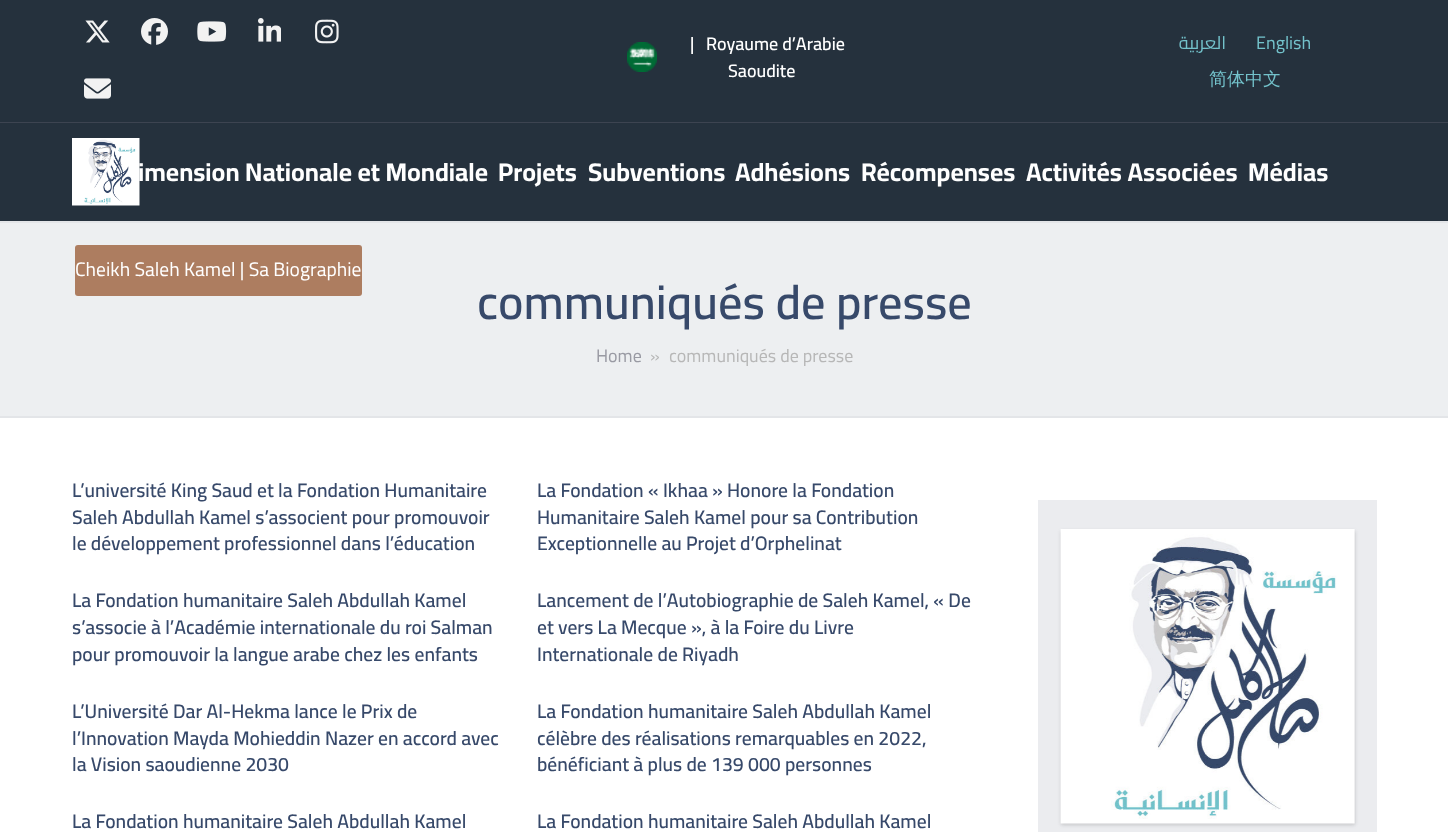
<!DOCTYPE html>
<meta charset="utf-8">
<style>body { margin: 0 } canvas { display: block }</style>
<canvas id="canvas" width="1448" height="832"></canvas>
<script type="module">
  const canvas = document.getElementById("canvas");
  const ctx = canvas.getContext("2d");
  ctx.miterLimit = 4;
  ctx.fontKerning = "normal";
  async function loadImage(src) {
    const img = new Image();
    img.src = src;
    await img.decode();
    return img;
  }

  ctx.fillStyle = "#ffffff";
  ctx.fillRect(0, 0, 1448, 832);
  ctx.fillStyle = "#25313d";
  ctx.fillRect(0, 0, 1448, 122);
  ctx.fillStyle = "#3d4451";
  ctx.fillRect(0, 122, 1448, 1);
  ctx.drawImage(await loadImage("img1.png"), 85, 20, 25, 23);
  ctx.drawImage(await loadImage("img2.png"), 141, 18, 27, 27);
  ctx.drawImage(await loadImage("img3.png"), 197, 21, 30, 21);
  ctx.drawImage(await loadImage("img4.png"), 258, 18, 23, 24);
  ctx.drawImage(await loadImage("img5.png"), 315, 19, 24, 25);
  ctx.drawImage(await loadImage("img6.png"), 84, 78, 27, 21);
  ctx.drawImage(await loadImage("img7.png"), 627, 42, 30, 30);
  ctx.font = "600 18px Cairo";
  ctx.fillStyle = "#ffffff";
  ctx.fillText("|   Royaume d’Arabie", 690, 50);
  ctx.fillText("Saoudite", 728, 77);
  ctx.direction = "rtl";
  ctx.font = "18px Cairo";
  ctx.fillStyle = "#73c2cb";
  ctx.fillText("العربية", 1226, 49);
  ctx.direction = "ltr";
  ctx.fillText("English", 1256, 49);
  ctx.font = "500 18px WenQuanYi Zen Hei";
  ctx.fillText("简体中文", 1209, 85);
  ctx.fillStyle = "#25313d";
  ctx.fillRect(0, 123, 1448, 98);
  ctx.drawImage(await loadImage("img8.png"), 72, 138, 68, 68);
  ctx.font = "bold 25.5px Cairo";
  ctx.fillStyle = "#ffffff";
  ctx.fillText("imension Nationale et Mondiale", 138, 181);
  ctx.fillText("Projets", 498, 181);
  ctx.fillText("Subventions", 588, 181);
  ctx.fillText("Adhésions", 735, 181);
  ctx.fillText("Récompenses", 861, 181);
  ctx.fillText("Activités Associées", 1026, 181);
  ctx.fillText("Médias", 1248, 181);
  ctx.fillStyle = "#edeff1";
  ctx.fillRect(0, 223, 1448, 193);
  ctx.fillStyle = "#ad7d60";
  ctx.beginPath();
  ctx.roundRect(75, 245, 287, 51, 3);
  ctx.fill();
  ctx.font = "19.5px Cairo";
  ctx.fillStyle = "#ffffff";
  ctx.fillText("Cheikh Saleh Kamel | Sa Biographie", 75, 276);
  ctx.fillStyle = "#e3e5e8";
  ctx.fillRect(0, 221, 1448, 2);
  ctx.fillRect(0, 416, 1448, 2);
  ctx.font = "600 48px Cairo";
  ctx.fillStyle = "#37496a";
  ctx.fillText("communiqués de presse", 477, 319);
  ctx.font = "18px Cairo";
  ctx.fillStyle = "#999aa3";
  ctx.fillText("Home", 596, 362);
  ctx.fillStyle = "#b7b7b7";
  ctx.fillText("»", 650, 362);
  ctx.fillText("communiqués de presse", 669, 362);
  ctx.font = "600 19.5px Cairo";
  ctx.fillStyle = "#37496a";
  ctx.fillText("L’université King Saud et la Fondation Humanitaire", 72, 497);
  ctx.fillText("Saleh Abdullah Kamel s’associent pour promouvoir", 72, 524);
  ctx.fillText("le développement professionnel dans l’éducation", 72, 550);
  ctx.fillText("La Fondation « Ikhaa » Honore la Fondation", 537, 497);
  ctx.fillText("Humanitaire Saleh Kamel pour sa Contribution", 537, 524);
  ctx.fillText("Exceptionnelle au Projet d’Orphelinat", 537, 550);
  ctx.fillText("La Fondation humanitaire Saleh Abdullah Kamel", 72, 607);
  ctx.fillText("s’associe à l’Académie internationale du roi Salman", 72, 634);
  ctx.fillText("pour promouvoir la langue arabe chez les enfants", 72, 661);
  ctx.fillText("Lancement de l’Autobiographie de Saleh Kamel, « De", 537, 607);
  ctx.fillText("et vers La Mecque », à la Foire du Livre", 537, 634);
  ctx.fillText("Internationale de Riyadh", 537, 661);
  ctx.fillText("L’Université Dar Al-Hekma lance le Prix de", 72, 718);
  ctx.fillText("l’Innovation Mayda Mohieddin Nazer en accord avec", 72, 745);
  ctx.fillText("la Vision saoudienne 2030", 72, 771);
  ctx.fillText("La Fondation humanitaire Saleh Abdullah Kamel", 537, 718);
  ctx.fillText("célèbre des réalisations remarquables en 2022,", 537, 745);
  ctx.fillText("bénéficiant à plus de 139 000 personnes", 537, 771);
  ctx.fillText("La Fondation humanitaire Saleh Abdullah Kamel", 72, 828);
  ctx.fillText("La Fondation humanitaire Saleh Abdullah Kamel", 537, 828);
  ctx.fillStyle = "#ebecef";
  ctx.fillRect(1038, 500, 339, 332);
  ctx.fillStyle = "rgba(0, 0, 0, 0.1)";
  ctx.filter = "blur(2px)";
  ctx.beginPath();
  ctx.rect(1061, 531, 294, 294);
  ctx.fill();
  ctx.filter = "none";
  ctx.fillStyle = "rgba(0, 0, 0, 0.06)";
  ctx.filter = "blur(1.5px)";
  ctx.beginPath();
  ctx.rect(1061, 531, 294, 294);
  ctx.fill();
  ctx.filter = "none";
  ctx.drawImage(await loadImage("img9.png"), 1060, 529, 295, 295);
</script>
